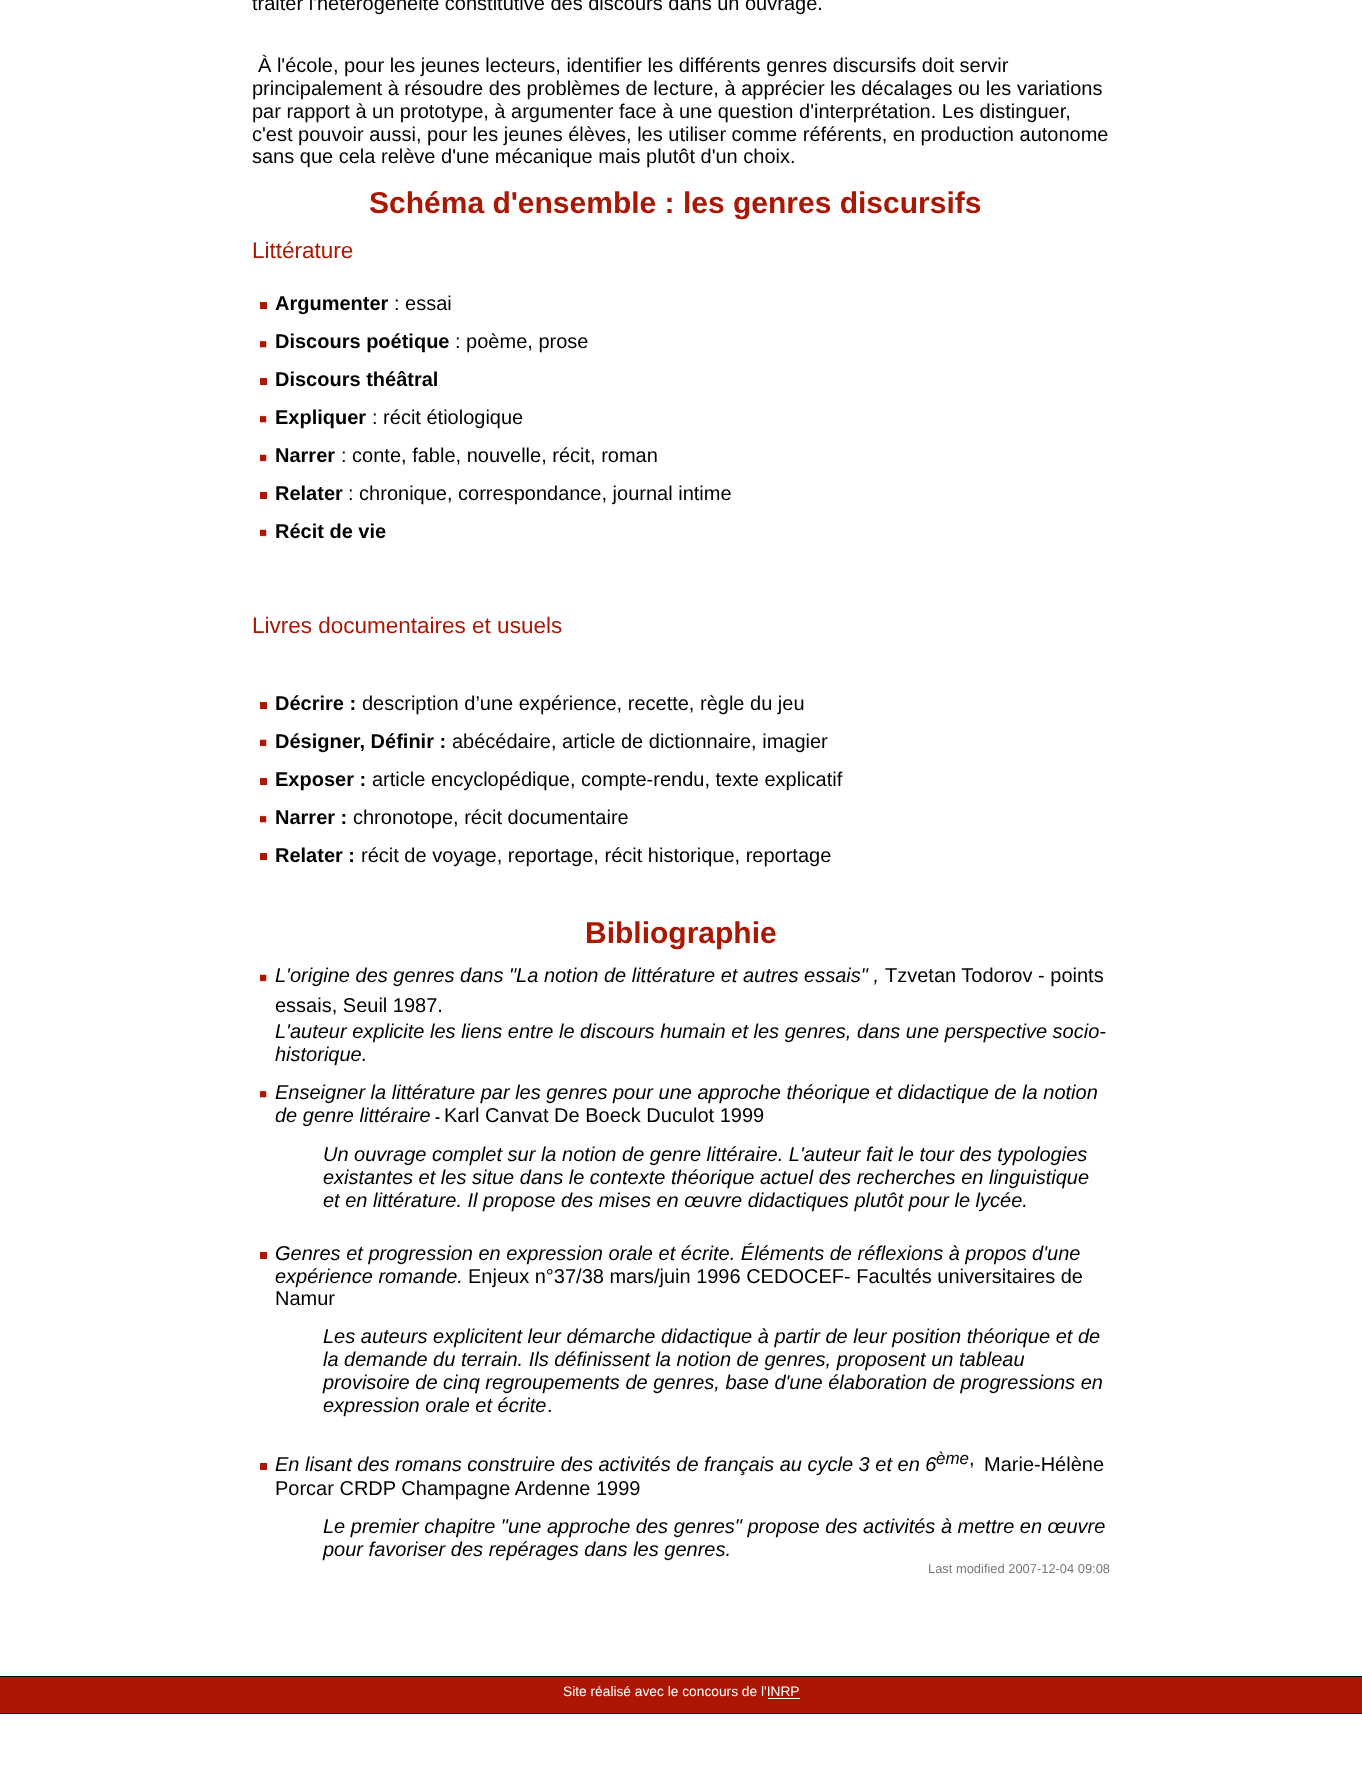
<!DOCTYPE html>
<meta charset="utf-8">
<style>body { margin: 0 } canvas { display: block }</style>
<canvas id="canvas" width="1362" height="1776"></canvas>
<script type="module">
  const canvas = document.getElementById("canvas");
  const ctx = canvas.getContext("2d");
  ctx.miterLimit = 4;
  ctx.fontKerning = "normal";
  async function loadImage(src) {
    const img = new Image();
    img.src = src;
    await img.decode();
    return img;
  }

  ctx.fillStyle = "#ffffff";
  ctx.fillRect(0, 0, 1362, 1776);
  ctx.font = "20px Liberation Sans";
  ctx.fillStyle = "#000000";
  ctx.fillText("traiter l'hétérogénéité constitutive des discours dans un ouvrage.", 252, 10);
  ctx.fillText("À l'école, pour les jeunes lecteurs, identifier les différents genres discursifs doit servir", 258, 72);
  ctx.fillText("principalement à résoudre des problèmes de lecture, à apprécier les décalages ou les variations", 252, 95);
  ctx.fillText("par rapport à un prototype, à argumenter face à une question d'interprétation. Les distinguer,", 252, 118);
  ctx.fillText("c'est pouvoir aussi, pour les jeunes élèves, les utiliser comme référents, en production autonome", 252, 141);
  ctx.fillText("sans que cela relève d'une mécanique mais plutôt d'un choix.", 252, 163);
  ctx.font = "bold 30px Liberation Sans";
  ctx.fillStyle = "#aa1703";
  ctx.fillText("Schéma d'ensemble : les genres discursifs", 369, 213);
  ctx.font = "22.5px Liberation Sans";
  ctx.fillText("Littérature", 252, 258);
  ctx.fillStyle = "#ac1703";
  ctx.fillRect(260, 302, 7, 7);
  ctx.font = "bold 20px Liberation Sans";
  ctx.fillStyle = "#000000";
  ctx.fillText("Argumenter", 275, 310);
  ctx.font = "20px Liberation Sans";
  ctx.fillText(": essai", 394, 310);
  ctx.drawImage(await loadImage("img1.png"), 260, 340, 7, 8);
  ctx.font = "bold 20px Liberation Sans";
  ctx.fillText("Discours poétique", 275, 348);
  ctx.font = "20px Liberation Sans";
  ctx.fillText(": poème, prose", 455, 348);
  ctx.fillStyle = "#ac1703";
  ctx.fillRect(260, 378, 7, 7);
  ctx.font = "bold 20px Liberation Sans";
  ctx.fillStyle = "#000000";
  ctx.fillText("Discours théâtral", 275, 386);
  ctx.drawImage(await loadImage("img1.png"), 260, 415, 7, 8);
  ctx.fillText("Expliquer", 275, 424);
  ctx.font = "20px Liberation Sans";
  ctx.fillText(": récit étiologique", 372, 424);
  ctx.drawImage(await loadImage("img2.png"), 260, 454, 7, 8);
  ctx.font = "bold 20px Liberation Sans";
  ctx.fillText("Narrer", 275, 462);
  ctx.font = "20px Liberation Sans";
  ctx.fillText(": conte, fable, nouvelle, récit, roman", 341, 462);
  ctx.fillStyle = "#ac1703";
  ctx.fillRect(260, 492, 7, 7);
  ctx.font = "bold 20px Liberation Sans";
  ctx.fillStyle = "#000000";
  ctx.fillText("Relater", 275, 500);
  ctx.font = "20px Liberation Sans";
  ctx.fillText(": chronique, correspondance, journal intime", 348, 500);
  ctx.drawImage(await loadImage("img2.png"), 260, 529, 7, 8);
  ctx.font = "bold 20px Liberation Sans";
  ctx.fillText("Récit de vie", 275, 538);
  ctx.font = "22.5px Liberation Sans";
  ctx.fillStyle = "#aa1703";
  ctx.fillText("Livres documentaires et usuels", 252, 633);
  ctx.fillStyle = "#ac1703";
  ctx.fillRect(260, 702, 7, 7);
  ctx.font = "bold 20px Liberation Sans";
  ctx.fillStyle = "#000000";
  ctx.fillText("Décrire :", 275, 710);
  ctx.font = "20px Liberation Sans";
  ctx.fillText("description d’une expérience, recette, règle du jeu", 362, 710);
  ctx.drawImage(await loadImage("img2.png"), 260, 739, 7, 8);
  ctx.font = "bold 20px Liberation Sans";
  ctx.fillText("Désigner, Définir :", 275, 748);
  ctx.font = "20px Liberation Sans";
  ctx.fillText("abécédaire, article de dictionnaire, imagier", 452, 748);
  ctx.fillStyle = "#ac1703";
  ctx.fillRect(260, 778, 7, 7);
  ctx.font = "bold 20px Liberation Sans";
  ctx.fillStyle = "#000000";
  ctx.fillText("Exposer :", 275, 786);
  ctx.font = "20px Liberation Sans";
  ctx.fillText("article encyclopédique, compte-rendu, texte explicatif", 372, 786);
  ctx.drawImage(await loadImage("img1.png"), 260, 815, 7, 8);
  ctx.font = "bold 20px Liberation Sans";
  ctx.fillText("Narrer :", 275, 824);
  ctx.font = "20px Liberation Sans";
  ctx.fillText("chronotope, récit documentaire", 353, 824);
  ctx.fillStyle = "#ac1703";
  ctx.fillRect(260, 853, 7, 7);
  ctx.font = "bold 20px Liberation Sans";
  ctx.fillStyle = "#000000";
  ctx.fillText("Relater :", 275, 862);
  ctx.font = "20px Liberation Sans";
  ctx.fillText("récit de voyage, reportage, récit historique, reportage", 361, 862);
  ctx.font = "bold 30px Liberation Sans";
  ctx.fillStyle = "#aa1703";
  ctx.fillText("Bibliographie", 585, 943);
  ctx.drawImage(await loadImage("img2.png"), 260, 974, 7, 8);
  ctx.font = "italic 20px Liberation Sans";
  ctx.fillStyle = "#000000";
  ctx.fillText("L'origine des genres dans \"La notion de littérature et autres essais\" ,", 275, 982);
  ctx.font = "20px Liberation Sans";
  ctx.fillText("Tzvetan Todorov - points", 885, 982);
  ctx.fillText("essais, Seuil 1987.", 275, 1012);
  ctx.font = "italic 20px Liberation Sans";
  ctx.fillText("L'auteur explicite les liens entre le discours humain et les genres, dans une perspective socio-", 275, 1038);
  ctx.fillText("historique.", 275, 1061);
  ctx.drawImage(await loadImage("img1.png"), 260, 1090, 7, 8);
  ctx.fillText("Enseigner la littérature par les genres pour une approche théorique et didactique de la notion", 275, 1099);
  ctx.fillText("de genre littéraire", 275, 1122);
  ctx.font = "bold 15px Liberation Sans";
  ctx.fillText("-", 435, 1122);
  ctx.font = "20px Liberation Sans";
  ctx.fillText("Karl Canvat De Boeck Duculot 1999", 444, 1122);
  ctx.font = "italic 20px Liberation Sans";
  ctx.fillText("Un ouvrage complet sur la notion de genre littéraire. L'auteur fait le tour des typologies", 323, 1161);
  ctx.fillText("existantes et les situe dans le contexte théorique actuel des recherches en linguistique", 323, 1184);
  ctx.fillText("et en littérature. Il propose des mises en œuvre didactiques plutôt pour le lycée.", 323, 1207);
  ctx.fillStyle = "#ac1703";
  ctx.fillRect(260, 1252, 7, 7);
  ctx.fillStyle = "#000000";
  ctx.fillText("Genres et progression en expression orale et écrite. Éléments de réflexions à propos d'une", 275, 1260);
  ctx.fillText("expérience romande.", 275, 1283);
  ctx.font = "20px Liberation Sans";
  ctx.fillText("Enjeux n°37/38 mars/juin 1996 CEDOCEF- Facultés universitaires de", 468, 1283);
  ctx.fillText("Namur", 275, 1305);
  ctx.font = "italic 20px Liberation Sans";
  ctx.fillText("Les auteurs explicitent leur démarche didactique à partir de leur position théorique et de", 323, 1343);
  ctx.fillText("la demande du terrain. Ils définissent la notion de genres, proposent un tableau", 323, 1366);
  ctx.fillText("provisoire de cinq regroupements de genres, base d'une élaboration de progressions en", 323, 1389);
  ctx.fillText("expression orale et écrite", 323, 1412);
  ctx.font = "20px Liberation Sans";
  ctx.fillText(".", 547, 1412);
  ctx.fillStyle = "#ac1703";
  ctx.fillRect(260, 1463, 7, 7);
  ctx.font = "italic 20px Liberation Sans";
  ctx.fillStyle = "#000000";
  ctx.fillText("En lisant des romans construire des activités de français au cycle 3 et en 6", 275, 1471);
  ctx.font = "italic 17px Liberation Sans";
  ctx.fillText("ème", 936, 1464);
  ctx.font = "20px Liberation Sans";
  ctx.fillText(",", 969, 1465);
  ctx.fillText("Marie-Hélène", 984, 1471);
  ctx.fillText("Porcar CRDP Champagne Ardenne 1999", 275, 1495);
  ctx.font = "italic 20px Liberation Sans";
  ctx.fillText("Le premier chapitre \"une approche des genres\" propose des activités à mettre en œuvre", 323, 1533);
  ctx.fillText("pour favoriser des repérages dans les genres.", 323, 1556);
  ctx.font = "12.9px Liberation Sans";
  ctx.fillStyle = "#76797c";
  ctx.fillText("Last modified 2007-12-04 09:08", 928, 1573);
  ctx.fillStyle = "#ab1703";
  ctx.fillRect(0, 1677, 1362, 36);
  ctx.fillStyle = "#000000";
  ctx.fillRect(0, 1676, 1362, 1);
  ctx.fillRect(0, 1713, 1362, 1);
  ctx.font = "13.75px Liberation Sans";
  ctx.fillStyle = "#ffffff";
  ctx.fillText("Site réalisé avec le concours de l'INRP", 563, 1696);
  ctx.fillRect(768, 1698, 32, 1);
</script>
